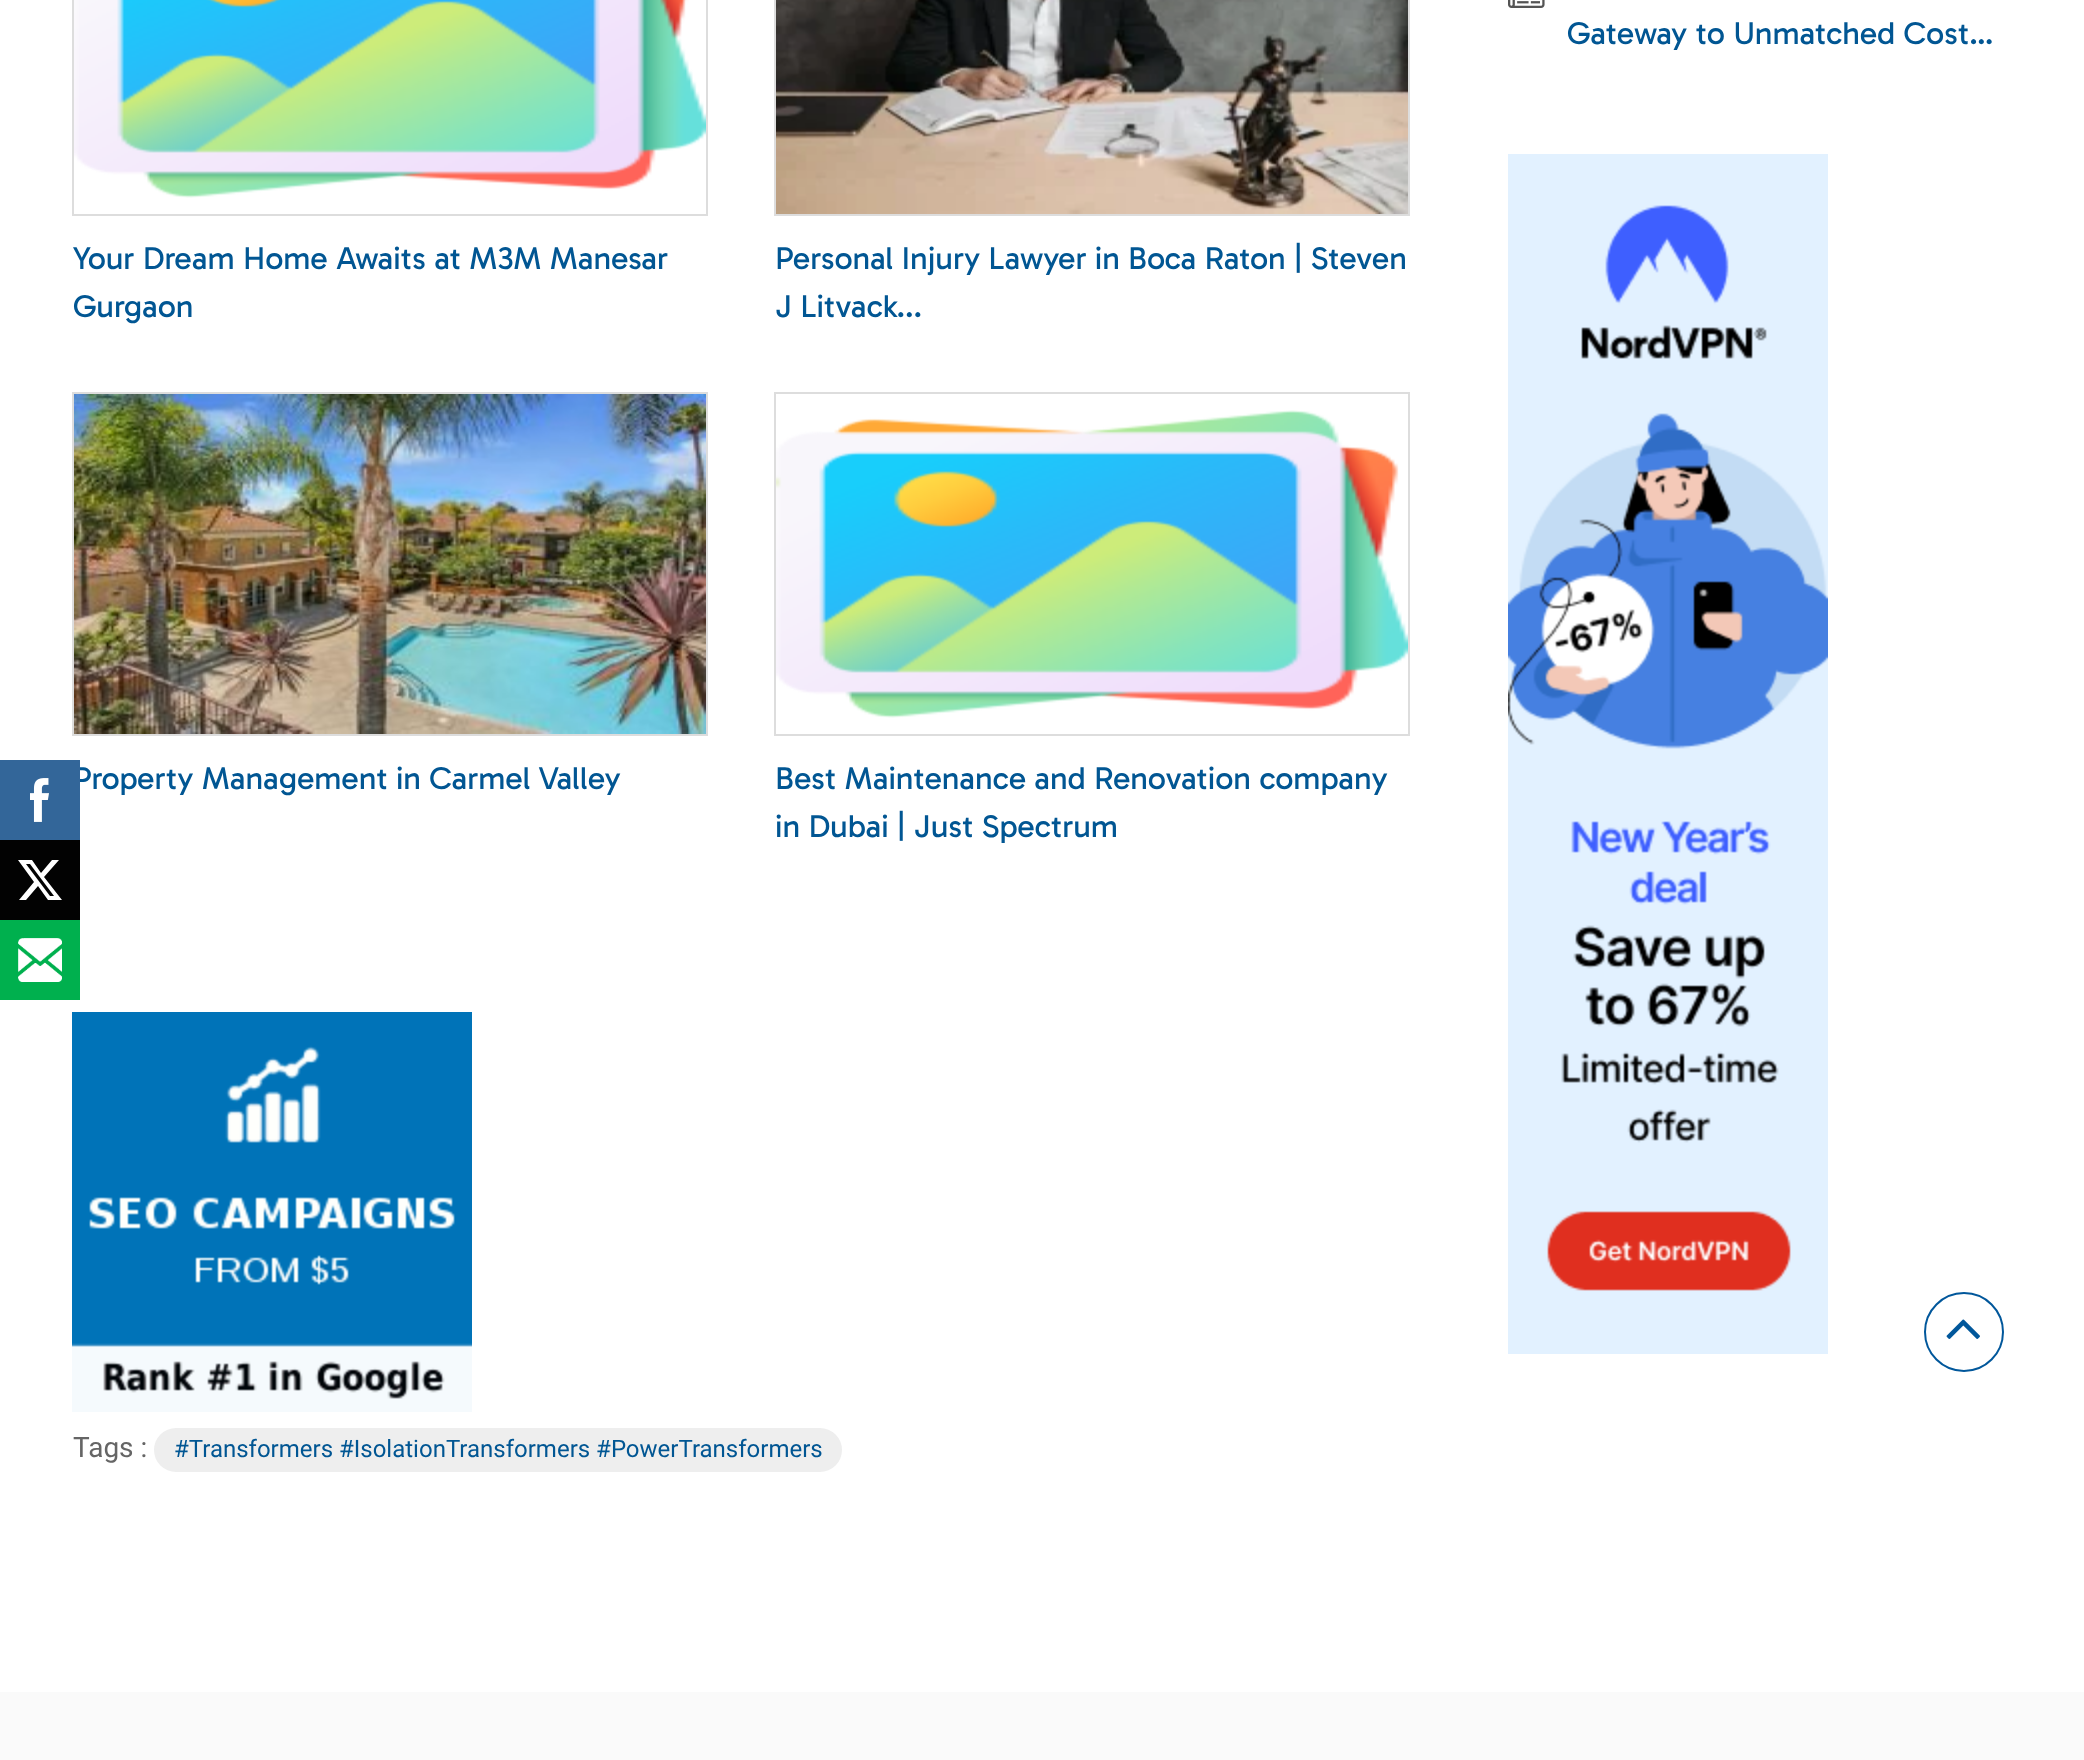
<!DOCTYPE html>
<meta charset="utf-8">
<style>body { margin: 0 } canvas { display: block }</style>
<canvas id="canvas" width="2084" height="1760"></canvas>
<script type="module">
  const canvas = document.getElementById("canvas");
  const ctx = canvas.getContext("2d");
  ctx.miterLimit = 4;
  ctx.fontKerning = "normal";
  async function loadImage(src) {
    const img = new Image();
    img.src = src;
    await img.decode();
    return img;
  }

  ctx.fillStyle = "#ffffff";
  ctx.fillRect(0, 0, 2084, 1760);
  ctx.font = "32px Gabarito";
  ctx.fillStyle = "#015693";
  ctx.fillText("Property Management in Carmel Valley", 73, 789);
  ctx.fillStyle = "#336699";
  ctx.fillRect(0, 760, 80, 80);
  ctx.drawImage(await loadImage("img1.png"), 30, 778, 19, 44);
  ctx.fillStyle = "#020202";
  ctx.fillRect(0, 840, 80, 80);
  ctx.fillStyle = "#ffffff";
  ctx.beginPath();
  ctx.moveTo(52, 860);
  ctx.lineTo(59, 860);
  ctx.lineTo(44, 877);
  ctx.lineTo(62, 900);
  ctx.lineTo(48, 900);
  ctx.lineTo(38, 886);
  ctx.lineTo(26, 900);
  ctx.lineTo(19, 900);
  ctx.lineTo(34, 882);
  ctx.lineTo(18, 860);
  ctx.lineTo(32, 860);
  ctx.lineTo(41, 873);
  ctx.closePath();
  ctx.moveTo(50, 896);
  ctx.lineTo(54, 896);
  ctx.lineTo(30, 864);
  ctx.lineTo(26, 864);
  ctx.closePath();
  ctx.fill();
  ctx.fillStyle = "#00b04e";
  ctx.fillRect(0, 920, 80, 80);
  ctx.drawImage(await loadImage("img2.png"), 18, 938, 44, 44);
  ctx.drawImage(await loadImage("img3.png"), 1508, 0, 37, 8);
  ctx.fillStyle = "#015693";
  ctx.fillText("Gateway to Unmatched Cost…", 1567, 44);
  ctx.drawImage(await loadImage("img4.png"), 1508, 154, 320, 1200);
  ctx.strokeStyle = "#dddddd";
  ctx.lineWidth = 2;
  ctx.strokeRect(73, -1, 634, 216);
  ctx.drawImage(await loadImage("img5.png"), 74, 0, 632, 198);
  ctx.fillText("Your Dream Home Awaits at M3M Manesar", 73, 269);
  ctx.fillText("Gurgaon", 73, 317);
  ctx.strokeRect(775, -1, 634, 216);
  ctx.drawImage(await loadImage("img6.png"), 776, 0, 632, 214);
  ctx.fillText("Personal Injury Lawyer in Boca Raton | Steven", 775, 269);
  ctx.fillText("J Litvack...", 775, 317);
  ctx.strokeRect(73, 393, 634, 342);
  ctx.drawImage(await loadImage("img7.png"), 74, 394, 632, 340);
  ctx.strokeRect(775, 393, 634, 342);
  ctx.drawImage(await loadImage("img8.png"), 776, 410, 632, 308);
  ctx.fillText("Best Maintenance and Renovation company", 775, 789);
  ctx.fillText("in Dubai | Just Spectrum", 775, 837);
  ctx.drawImage(await loadImage("img9.png"), 72, 1012, 400, 400);
  ctx.font = "28px Roboto";
  ctx.fillStyle = "#656565";
  ctx.fillText("Tags :", 73, 1457);
  ctx.fillStyle = "#eeeeee";
  ctx.beginPath();
  ctx.roundRect(154, 1428, 688, 44, 22);
  ctx.fill();
  ctx.font = "24px Roboto";
  ctx.fillStyle = "#015693";
  ctx.fillText("#Transformers #IsolationTransformers #PowerTransformers", 174, 1457);
  ctx.beginPath();
  ctx.arc(1964, 1332, 39, 0, Math.PI * 2);
  ctx.strokeStyle = "#01579b";
  ctx.stroke();
  ctx.drawImage(await loadImage("img10.png"), 1946, 1319, 34, 20);
  ctx.fillStyle = "#fafafa";
  ctx.fillRect(0, 1692, 2084, 68);
</script>
